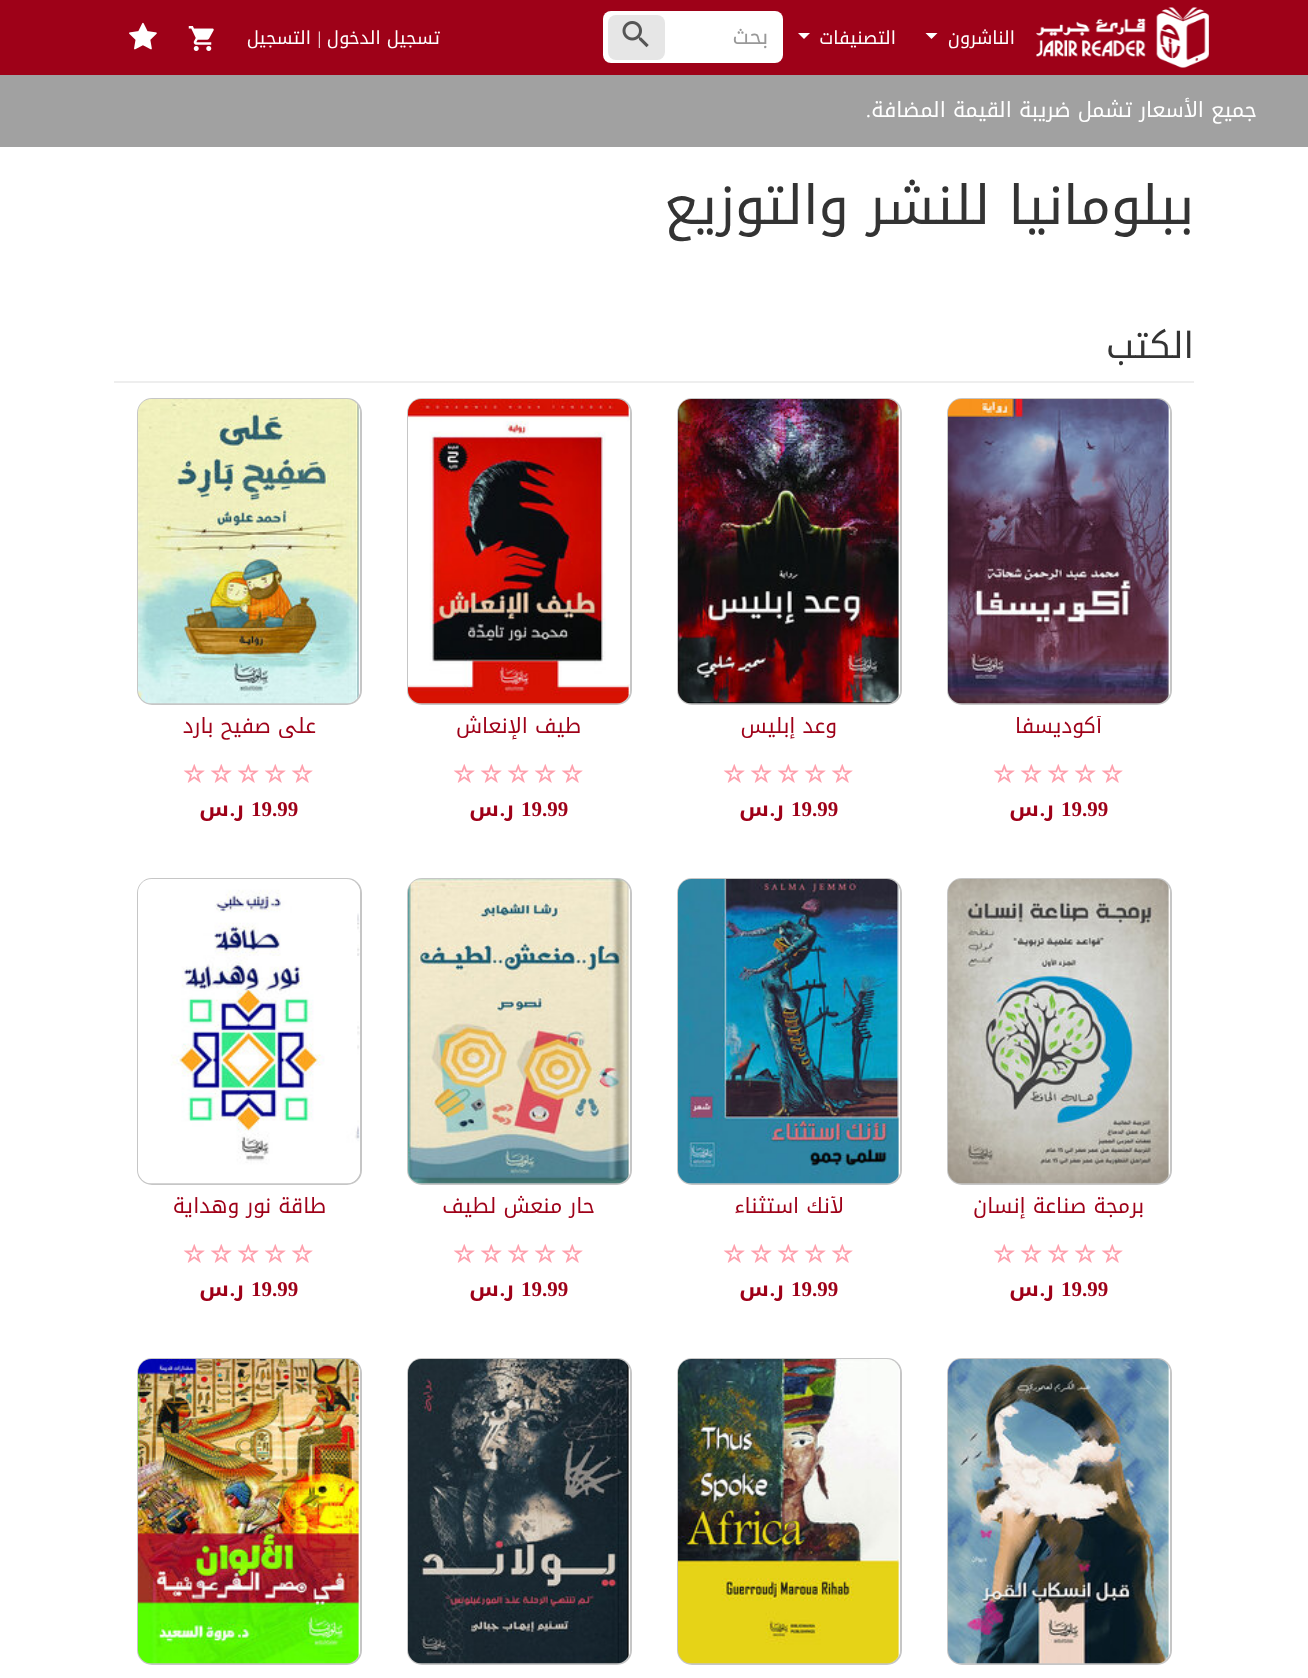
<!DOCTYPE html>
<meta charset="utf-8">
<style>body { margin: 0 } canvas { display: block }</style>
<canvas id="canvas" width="1308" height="1678"></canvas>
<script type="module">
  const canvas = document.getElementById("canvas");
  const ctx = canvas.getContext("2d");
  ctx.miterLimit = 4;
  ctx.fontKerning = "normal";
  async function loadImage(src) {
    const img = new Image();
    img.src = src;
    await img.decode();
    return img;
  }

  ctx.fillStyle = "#ffffff";
  ctx.fillRect(0, 0, 1308, 1678);
  ctx.fillStyle = "#9e0118";
  ctx.fillRect(0, 0, 1308, 75);
  ctx.drawImage(await loadImage("img1.png"), 1036, 7, 173, 61);
  ctx.direction = "rtl";
  ctx.font = "18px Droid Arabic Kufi";
  ctx.fillStyle = "#ffffff";
  ctx.fillText("الناشرون", 1015, 44);
  ctx.beginPath();
  ctx.moveTo(925.5, 33);
  ctx.lineTo(937.5, 33);
  ctx.lineTo(931.5, 39);
  ctx.closePath();
  ctx.fill();
  ctx.fillText("التصنيفات", 896, 44);
  ctx.beginPath();
  ctx.moveTo(798, 33);
  ctx.lineTo(810, 33);
  ctx.lineTo(804, 39);
  ctx.closePath();
  ctx.fill();
  ctx.beginPath();
  ctx.roundRect(603, 11, 180, 52, 8);
  ctx.fill();
  ctx.font = "21px Droid Arabic Kufi";
  ctx.fillStyle = "#999999";
  ctx.fillText("بحث", 768, 44);
  ctx.fillStyle = "#e6e6e6";
  ctx.beginPath();
  ctx.roundRect(608, 15, 57, 45, 8);
  ctx.fill();
  ctx.drawImage(await loadImage("img2.png"), 622, 21, 27, 27);
  ctx.font = "18px Droid Arabic Kufi";
  ctx.fillStyle = "#ffffff";
  ctx.fillText("تسجيل الدخول", 440, 44);
  ctx.font = "18px Liberation Serif";
  ctx.fillText("|", 321, 44);
  ctx.font = "18px Droid Arabic Kufi";
  ctx.fillText("التسجيل", 311, 44);
  ctx.drawImage(await loadImage("img3.png"), 188, 26, 26, 25);
  ctx.drawImage(await loadImage("img4.png"), 129, 22, 28, 28);
  ctx.fillStyle = "#a1a1a1";
  ctx.fillRect(0, 75, 1308, 72);
  ctx.font = "21px Droid Arabic Kufi";
  ctx.fillStyle = "#ffffff";
  ctx.fillText("جميع الأسعار تشمل ضريبة القيمة المضافة", 1257, 117);
  ctx.font = "21px Liberation Serif";
  ctx.fillText(".", 871, 117);
  ctx.font = "54px Droid Arabic Kufi";
  ctx.fillStyle = "#333333";
  ctx.fillText("ببلومانيا للنشر والتوزيع", 1194, 224);
  ctx.fillStyle = "#eeeeee";
  ctx.fillRect(114, 381, 1080, 2);
  ctx.font = "36px Droid Arabic Kufi";
  ctx.fillStyle = "#333333";
  ctx.fillText("الكتب", 1194, 358);
  ctx.beginPath();
  ctx.roundRect(948, 399, 223, 305, 14);
  ctx.strokeStyle = "#c6c6c6";
  ctx.lineWidth = 2;
  ctx.stroke();
  ctx.drawImage(await loadImage("img5.png"), 948, 399, 222, 305);
  ctx.save();
  ctx.beginPath();
  ctx.rect(947, 716, 225, 46);
  ctx.clip();
  ctx.font = "21px Droid Arabic Kufi";
  ctx.fillStyle = "#9e0118";
  ctx.fillText("أكوديسفا", 1102, 733);
  ctx.restore();
  ctx.drawImage(await loadImage("img6.png"), 1101, 764, 22, 19);
  ctx.drawImage(await loadImage("img6.png"), 1074, 764, 22, 19);
  ctx.drawImage(await loadImage("img6.png"), 1047, 764, 22, 19);
  ctx.drawImage(await loadImage("img6.png"), 1020, 764, 22, 19);
  ctx.drawImage(await loadImage("img6.png"), 993, 764, 22, 19);
  ctx.direction = "ltr";
  ctx.font = "bold 21px Liberation Serif";
  ctx.fillStyle = "#9e0118";
  ctx.fillText("19.99", 1061, 816);
  ctx.direction = "rtl";
  ctx.fillText(".", 1045, 816);
  ctx.font = "bold 21px Droid Arabic Kufi";
  ctx.fillText("ر", 1054, 816);
  ctx.fillText("س", 1039, 816);
  ctx.beginPath();
  ctx.roundRect(678, 399, 223, 305, 14);
  ctx.stroke();
  ctx.drawImage(await loadImage("img7.png"), 678, 399, 222, 305);
  ctx.font = "21px Droid Arabic Kufi";
  ctx.fillText("وعد إبليس", 837, 733);
  ctx.drawImage(await loadImage("img6.png"), 831, 764, 22, 19);
  ctx.drawImage(await loadImage("img6.png"), 804, 764, 22, 19);
  ctx.drawImage(await loadImage("img6.png"), 777, 764, 22, 19);
  ctx.drawImage(await loadImage("img6.png"), 750, 764, 22, 19);
  ctx.drawImage(await loadImage("img6.png"), 723, 764, 22, 19);
  ctx.direction = "ltr";
  ctx.font = "bold 21px Liberation Serif";
  ctx.fillText("19.99", 791, 816);
  ctx.direction = "rtl";
  ctx.fillText(".", 775, 816);
  ctx.font = "bold 21px Droid Arabic Kufi";
  ctx.fillText("ر", 784, 816);
  ctx.fillText("س", 769, 816);
  ctx.beginPath();
  ctx.roundRect(408, 399, 223, 305, 14);
  ctx.stroke();
  ctx.drawImage(await loadImage("img8.png"), 408, 399, 222, 305);
  ctx.font = "21px Droid Arabic Kufi";
  ctx.fillText("طيف الإنعاش", 581, 733);
  ctx.drawImage(await loadImage("img6.png"), 561, 764, 22, 19);
  ctx.drawImage(await loadImage("img6.png"), 534, 764, 22, 19);
  ctx.drawImage(await loadImage("img6.png"), 507, 764, 22, 19);
  ctx.drawImage(await loadImage("img6.png"), 480, 764, 22, 19);
  ctx.drawImage(await loadImage("img6.png"), 453, 764, 22, 19);
  ctx.direction = "ltr";
  ctx.font = "bold 21px Liberation Serif";
  ctx.fillText("19.99", 521, 816);
  ctx.direction = "rtl";
  ctx.fillText(".", 505, 816);
  ctx.font = "bold 21px Droid Arabic Kufi";
  ctx.fillText("ر", 514, 816);
  ctx.fillText("س", 499, 816);
  ctx.beginPath();
  ctx.roundRect(138, 399, 223, 305, 14);
  ctx.stroke();
  ctx.drawImage(await loadImage("img9.png"), 138, 399, 222, 305);
  ctx.font = "21px Droid Arabic Kufi";
  ctx.fillText("على صفيح بارد", 316, 733);
  ctx.drawImage(await loadImage("img6.png"), 291, 764, 22, 19);
  ctx.drawImage(await loadImage("img6.png"), 264, 764, 22, 19);
  ctx.drawImage(await loadImage("img6.png"), 237, 764, 22, 19);
  ctx.drawImage(await loadImage("img6.png"), 210, 764, 22, 19);
  ctx.drawImage(await loadImage("img6.png"), 183, 764, 22, 19);
  ctx.direction = "ltr";
  ctx.font = "bold 21px Liberation Serif";
  ctx.fillText("19.99", 251, 816);
  ctx.direction = "rtl";
  ctx.fillText(".", 235, 816);
  ctx.font = "bold 21px Droid Arabic Kufi";
  ctx.fillText("ر", 244, 816);
  ctx.fillText("س", 229, 816);
  ctx.beginPath();
  ctx.roundRect(948, 879, 223, 305, 14);
  ctx.stroke();
  ctx.drawImage(await loadImage("img10.png"), 948, 879, 222, 305);
  ctx.font = "21px Droid Arabic Kufi";
  ctx.fillText("برمجة صناعة إنسان", 1144, 1213);
  ctx.drawImage(await loadImage("img6.png"), 1101, 1244, 22, 19);
  ctx.drawImage(await loadImage("img6.png"), 1074, 1244, 22, 19);
  ctx.drawImage(await loadImage("img6.png"), 1047, 1244, 22, 19);
  ctx.drawImage(await loadImage("img6.png"), 1020, 1244, 22, 19);
  ctx.drawImage(await loadImage("img6.png"), 993, 1244, 22, 19);
  ctx.direction = "ltr";
  ctx.font = "bold 21px Liberation Serif";
  ctx.fillText("19.99", 1061, 1296);
  ctx.direction = "rtl";
  ctx.fillText(".", 1045, 1296);
  ctx.font = "bold 21px Droid Arabic Kufi";
  ctx.fillText("ر", 1054, 1296);
  ctx.fillText("س", 1039, 1296);
  ctx.beginPath();
  ctx.roundRect(678, 879, 223, 305, 14);
  ctx.stroke();
  ctx.drawImage(await loadImage("img11.png"), 678, 879, 222, 305);
  ctx.save();
  ctx.beginPath();
  ctx.rect(677, 1196, 225, 46);
  ctx.clip();
  ctx.font = "21px Droid Arabic Kufi";
  ctx.fillText("لأنك استثناء", 844, 1213);
  ctx.restore();
  ctx.drawImage(await loadImage("img6.png"), 831, 1244, 22, 19);
  ctx.drawImage(await loadImage("img6.png"), 804, 1244, 22, 19);
  ctx.drawImage(await loadImage("img6.png"), 777, 1244, 22, 19);
  ctx.drawImage(await loadImage("img6.png"), 750, 1244, 22, 19);
  ctx.drawImage(await loadImage("img6.png"), 723, 1244, 22, 19);
  ctx.direction = "ltr";
  ctx.font = "bold 21px Liberation Serif";
  ctx.fillText("19.99", 791, 1296);
  ctx.direction = "rtl";
  ctx.fillText(".", 775, 1296);
  ctx.font = "bold 21px Droid Arabic Kufi";
  ctx.fillText("ر", 784, 1296);
  ctx.fillText("س", 769, 1296);
  ctx.beginPath();
  ctx.roundRect(408, 879, 223, 305, 14);
  ctx.stroke();
  ctx.drawImage(await loadImage("img12.png"), 408, 879, 222, 305);
  ctx.font = "21px Droid Arabic Kufi";
  ctx.fillText("حار منعش لطيف", 595, 1213);
  ctx.drawImage(await loadImage("img6.png"), 561, 1244, 22, 19);
  ctx.drawImage(await loadImage("img6.png"), 534, 1244, 22, 19);
  ctx.drawImage(await loadImage("img6.png"), 507, 1244, 22, 19);
  ctx.drawImage(await loadImage("img6.png"), 480, 1244, 22, 19);
  ctx.drawImage(await loadImage("img6.png"), 453, 1244, 22, 19);
  ctx.direction = "ltr";
  ctx.font = "bold 21px Liberation Serif";
  ctx.fillText("19.99", 521, 1296);
  ctx.direction = "rtl";
  ctx.fillText(".", 505, 1296);
  ctx.font = "bold 21px Droid Arabic Kufi";
  ctx.fillText("ر", 514, 1296);
  ctx.fillText("س", 499, 1296);
  ctx.beginPath();
  ctx.roundRect(138, 879, 223, 305, 14);
  ctx.stroke();
  ctx.drawImage(await loadImage("img13.png"), 138, 879, 222, 305);
  ctx.font = "21px Droid Arabic Kufi";
  ctx.fillText("طاقة نور وهداية", 326, 1213);
  ctx.drawImage(await loadImage("img6.png"), 291, 1244, 22, 19);
  ctx.drawImage(await loadImage("img6.png"), 264, 1244, 22, 19);
  ctx.drawImage(await loadImage("img6.png"), 237, 1244, 22, 19);
  ctx.drawImage(await loadImage("img6.png"), 210, 1244, 22, 19);
  ctx.drawImage(await loadImage("img6.png"), 183, 1244, 22, 19);
  ctx.direction = "ltr";
  ctx.font = "bold 21px Liberation Serif";
  ctx.fillText("19.99", 251, 1296);
  ctx.direction = "rtl";
  ctx.fillText(".", 235, 1296);
  ctx.font = "bold 21px Droid Arabic Kufi";
  ctx.fillText("ر", 244, 1296);
  ctx.fillText("س", 229, 1296);
  ctx.beginPath();
  ctx.roundRect(948, 1359, 223, 305, 14);
  ctx.stroke();
  ctx.drawImage(await loadImage("img14.png"), 948, 1359, 222, 305);
  ctx.beginPath();
  ctx.roundRect(678, 1359, 223, 305, 14);
  ctx.stroke();
  ctx.drawImage(await loadImage("img15.png"), 678, 1359, 222, 305);
  ctx.beginPath();
  ctx.roundRect(408, 1359, 223, 305, 14);
  ctx.stroke();
  ctx.drawImage(await loadImage("img16.png"), 408, 1359, 222, 305);
  ctx.beginPath();
  ctx.roundRect(138, 1359, 223, 305, 14);
  ctx.stroke();
  ctx.drawImage(await loadImage("img17.png"), 138, 1359, 222, 305);
</script>
